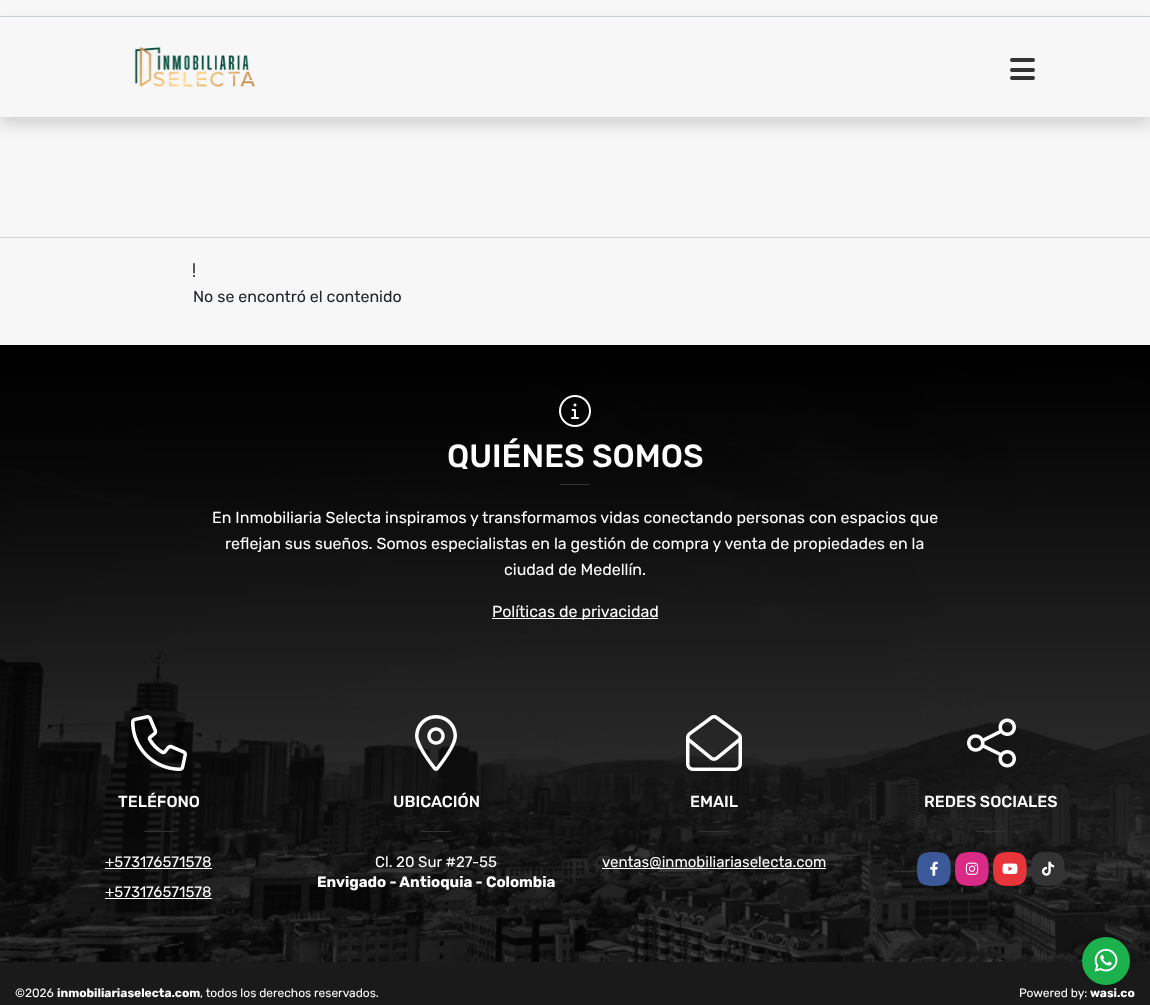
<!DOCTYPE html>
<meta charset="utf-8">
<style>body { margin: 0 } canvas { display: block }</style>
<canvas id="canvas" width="1150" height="1005"></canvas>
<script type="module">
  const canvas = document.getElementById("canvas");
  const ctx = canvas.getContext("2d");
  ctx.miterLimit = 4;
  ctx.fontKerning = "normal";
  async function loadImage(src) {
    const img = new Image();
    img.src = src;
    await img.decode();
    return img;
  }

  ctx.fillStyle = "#f7f7f7";
  ctx.fillRect(0, 0, 1150, 1005);
  ctx.fillStyle = "#ced4da";
  ctx.fillRect(0, 16, 1150, 1);
  ctx.save();
  ctx.beginPath();
  ctx.moveTo(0, 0);
  ctx.lineTo(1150, 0);
  ctx.lineTo(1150, 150);
  ctx.lineTo(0, 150);
  ctx.closePath();
  ctx.moveTo(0, 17);
  ctx.lineTo(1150, 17);
  ctx.lineTo(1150, 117);
  ctx.lineTo(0, 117);
  ctx.closePath();
  ctx.clip("evenodd");
  ctx.fillStyle = "rgba(0, 0, 0, 0.15)";
  ctx.filter = "blur(8px)";
  ctx.beginPath();
  ctx.rect(0, 25, 1150, 100);
  ctx.fill();
  ctx.filter = "none";
  ctx.restore();
  ctx.drawImage(await loadImage("img1.png"), 134, 47, 122, 40);
  ctx.fillStyle = "#333333";
  ctx.beginPath();
  ctx.roundRect(1010, 58, 25, 4, 2);
  ctx.fill();
  ctx.beginPath();
  ctx.roundRect(1010, 68, 25, 4, 2);
  ctx.fill();
  ctx.beginPath();
  ctx.roundRect(1010, 76, 25, 4, 2);
  ctx.fill();
  ctx.fillStyle = "#d2d2d2";
  ctx.fillRect(0, 237, 1150, 1);
  ctx.drawImage(await loadImage("img2.png"), 193, 263, 2, 14);
  ctx.font = "16px Rubik";
  ctx.fillStyle = "#212529";
  ctx.fillText("No se encontró el contenido", 193, 302);
  ctx.drawImage(await loadImage("img3.png"), 0, 345, 1150, 617);
  ctx.drawImage(await loadImage("img4.png"), 559, 395, 32, 32);
  ctx.font = "500 32px Rubik";
  ctx.fillStyle = "#ffffff";
  ctx.fillText("QUIÉNES SOMOS", 447, 467);
  ctx.fillStyle = "#333333";
  ctx.fillRect(560, 484, 30, 1);
  ctx.font = "16px Rubik";
  ctx.fillStyle = "#ffffff";
  ctx.fillText("En Inmobiliaria Selecta inspiramos y transformamos vidas conectando personas con espacios que", 212, 523);
  ctx.fillText("reflejan sus sueños. Somos especialistas en la gestión de compra y venta de propiedades en la", 225, 549);
  ctx.fillText("ciudad de Medellín.", 504, 575);
  ctx.fillRect(492, 618, 166, 1);
  ctx.fillText("Políticas de privacidad", 492, 617);
  ctx.drawImage(await loadImage("img5.png"), 131, 715, 56, 56);
  ctx.font = "500 16px Rubik";
  ctx.fillText("TELÉFONO", 118, 807);
  ctx.fillStyle = "#333333";
  ctx.fillRect(144, 831, 30, 1);
  ctx.font = "15px Rubik";
  ctx.fillStyle = "#ffffff";
  ctx.fillText("+573176571578", 105, 867);
  ctx.fillRect(105, 868, 107, 1);
  ctx.fillText("+573176571578", 105, 897);
  ctx.fillRect(105, 898, 107, 1);
  ctx.drawImage(await loadImage("img6.png"), 415, 715, 42, 56);
  ctx.font = "500 16px Rubik";
  ctx.fillText("UBICACIÓN", 393, 807);
  ctx.fillStyle = "#333333";
  ctx.fillRect(421, 831, 30, 1);
  ctx.font = "15px Rubik";
  ctx.fillStyle = "#ffffff";
  ctx.fillText("Cl. 20 Sur #27-55", 375, 867);
  ctx.font = "bold 15px Rubik";
  ctx.fillText("Envigado - Antioquia - Colombia", 317, 887);
  ctx.drawImage(await loadImage("img7.png"), 686, 715, 56, 56);
  ctx.font = "500 16px Rubik";
  ctx.fillText("EMAIL", 690, 807);
  ctx.fillStyle = "#333333";
  ctx.fillRect(699, 831, 30, 1);
  ctx.fillStyle = "#ffffff";
  ctx.fillRect(602, 868, 224, 1);
  ctx.font = "15px Rubik";
  ctx.fillText("ventas@inmobiliariaselecta.com", 602, 867);
  ctx.drawImage(await loadImage("img8.png"), 967, 718, 49, 50);
  ctx.font = "500 16px Rubik";
  ctx.fillText("REDES SOCIALES", 924, 807);
  ctx.fillStyle = "#333333";
  ctx.fillRect(976, 831, 30, 1);
  ctx.drawImage(await loadImage("img9.png"), 917, 852, 34, 34);
  ctx.drawImage(await loadImage("img10.png"), 930, 861, 8, 15);
  ctx.drawImage(await loadImage("img11.png"), 955, 852, 34, 34);
  ctx.drawImage(await loadImage("img12.png"), 965, 862, 14, 13);
  ctx.drawImage(await loadImage("img13.png"), 993, 852, 34, 34);
  ctx.drawImage(await loadImage("img14.png"), 1002, 863, 16, 11);
  ctx.drawImage(await loadImage("img15.png"), 1031, 852, 34, 34);
  ctx.drawImage(await loadImage("img16.png"), 1041, 861, 14, 15);
  ctx.fillStyle = "#1a1a1a";
  ctx.fillRect(0, 962, 1150, 43);
  ctx.fillStyle = "rgba(0, 0, 0, 0.2)";
  ctx.filter = "blur(3px)";
  ctx.beginPath();
  ctx.roundRect(1082, 937, 48, 48, 24);
  ctx.fill();
  ctx.filter = "none";
  ctx.fillStyle = "#1bb24e";
  ctx.beginPath();
  ctx.arc(1106, 961, 24, 0, Math.PI * 2);
  ctx.fill();
  ctx.drawImage(await loadImage("img17.png"), 1094, 948, 24, 24);
  ctx.font = "12px Rubik";
  ctx.fillStyle = "#ffffff";
  ctx.fillText("©2026", 15, 997);
  ctx.font = "bold 12px Rubik";
  ctx.fillText("inmobiliariaselecta.com", 57, 997);
  ctx.font = "12px Rubik";
  ctx.fillText(", todos los derechos reservados.", 200, 997);
  ctx.fillText("Powered by:", 1019, 997);
  ctx.font = "bold 12px Rubik";
  ctx.fillText("wasi.co", 1090, 997);
</script>
